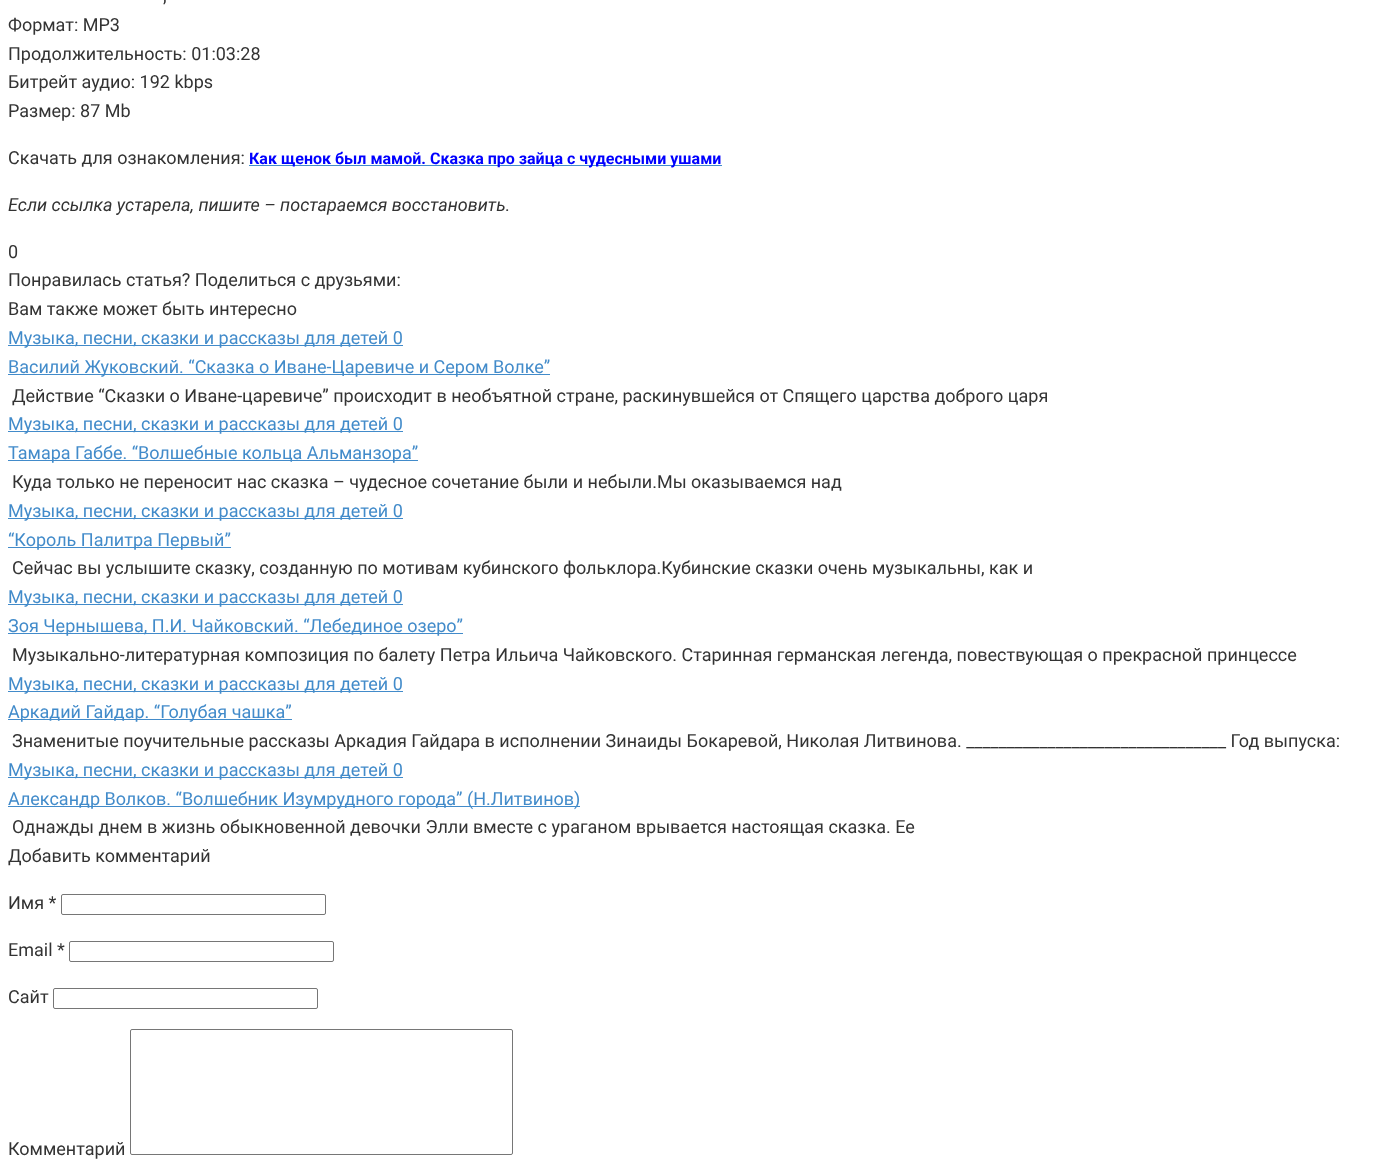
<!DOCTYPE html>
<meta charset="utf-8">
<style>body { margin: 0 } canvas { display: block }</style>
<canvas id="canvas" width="1388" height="1170"></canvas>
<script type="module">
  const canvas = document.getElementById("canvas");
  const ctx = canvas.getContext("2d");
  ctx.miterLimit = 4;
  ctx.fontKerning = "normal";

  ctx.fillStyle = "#ffffff";
  ctx.fillRect(0, 0, 1388, 1170);
  ctx.font = "18px Roboto";
  ctx.fillStyle = "#333333";
  ctx.fillText(",", 163, 2);
  ctx.fillText("Формат: MP3", 8, 31);
  ctx.fillText("Продолжительность: 01:03:28", 8, 60);
  ctx.fillText("Битрейт аудио: 192 kbps", 8, 88);
  ctx.fillText("Размер: 87 Mb", 8, 117);
  ctx.fillText("Скачать для ознакомления:", 8, 164);
  ctx.fillStyle = "#428bca";
  ctx.fillRect(249, 165, 473, 1);
  ctx.font = "bold 16px Roboto";
  ctx.fillStyle = "#0000ff";
  ctx.fillText("Как щенок был мамой. Сказка про зайца с чудесными ушами", 249, 164);
  ctx.font = "italic 18px Roboto";
  ctx.fillStyle = "#333333";
  ctx.fillText("Если ссылка устарела, пишите – постараемся восстановить.", 8, 211);
  ctx.font = "18px Roboto";
  ctx.fillText("0", 8, 258);
  ctx.fillText("Понравилась статья? Поделиться с друзьями:", 8, 286);
  ctx.fillText("Вам также может быть интересно", 8, 315);
  ctx.fillStyle = "#428bca";
  ctx.fillRect(8, 345, 395, 1);
  ctx.fillText("Музыка, песни, сказки и рассказы для детей 0", 8, 344);
  ctx.fillRect(8, 374, 542, 1);
  ctx.fillText("Василий Жуковский. “Сказка о Иване-Царевиче и Сером Волке”", 8, 373);
  ctx.fillStyle = "#333333";
  ctx.fillText("Действие “Сказки о Иване-царевиче” происходит в необъятной стране, раскинувшейся от Спящего царства доброго царя", 12, 402);
  ctx.fillStyle = "#428bca";
  ctx.fillRect(8, 431, 395, 1);
  ctx.fillText("Музыка, песни, сказки и рассказы для детей 0", 8, 430);
  ctx.fillRect(8, 460, 410, 1);
  ctx.fillText("Тамара Габбе. “Волшебные кольца Альманзора”", 8, 459);
  ctx.fillStyle = "#333333";
  ctx.fillText("Куда только не переносит нас сказка – чудесное сочетание были и небыли.Мы оказываемся над", 12, 488);
  ctx.fillStyle = "#428bca";
  ctx.fillRect(8, 518, 395, 1);
  ctx.fillText("Музыка, песни, сказки и рассказы для детей 0", 8, 517);
  ctx.fillRect(8, 547, 223, 1);
  ctx.fillText("“Король Палитра Первый”", 8, 546);
  ctx.fillStyle = "#333333";
  ctx.fillText("Сейчас вы услышите сказку, созданную по мотивам кубинского фольклора.Кубинские сказки очень музыкальны, как и", 12, 574);
  ctx.fillStyle = "#428bca";
  ctx.fillRect(8, 604, 395, 1);
  ctx.fillText("Музыка, песни, сказки и рассказы для детей 0", 8, 603);
  ctx.fillRect(8, 633, 455, 1);
  ctx.fillText("Зоя Чернышева, П.И. Чайковский. “Лебединое озеро”", 8, 632);
  ctx.fillStyle = "#333333";
  ctx.fillText("Музыкально-литературная композиция по балету Петра Ильича Чайковского. Старинная германская легенда, повествующая о прекрасной принцессе", 12, 661);
  ctx.fillStyle = "#428bca";
  ctx.fillRect(8, 691, 395, 1);
  ctx.fillText("Музыка, песни, сказки и рассказы для детей 0", 8, 690);
  ctx.fillRect(8, 719, 284, 1);
  ctx.fillText("Аркадий Гайдар. “Голубая чашка”", 8, 718);
  ctx.fillStyle = "#333333";
  ctx.fillText("Знаменитые поучительные рассказы Аркадия Гайдара в исполнении Зинаиды Бокаревой, Николая Литвинова. ________________________________ Год выпуска:", 12, 747);
  ctx.fillStyle = "#428bca";
  ctx.fillRect(8, 777, 395, 1);
  ctx.fillText("Музыка, песни, сказки и рассказы для детей 0", 8, 776);
  ctx.fillRect(8, 806, 572, 1);
  ctx.fillText("Александр Волков. “Волшебник Изумрудного города” (Н.Литвинов)", 8, 805);
  ctx.fillStyle = "#333333";
  ctx.fillText("Однажды днем в жизнь обыкновенной девочки Элли вместе с ураганом врывается настоящая сказка. Ее", 12, 833);
  ctx.fillText("Добавить комментарий", 8, 862);
  ctx.fillText("Имя *", 8, 909);
  ctx.beginPath();
  ctx.roundRect(61.5, 894.5, 264, 20, 1.5);
  ctx.strokeStyle = "#767676";
  ctx.stroke();
  ctx.fillText("Email *", 8, 956);
  ctx.beginPath();
  ctx.roundRect(69.5, 941.5, 264, 20, 1.5);
  ctx.stroke();
  ctx.fillText("Сайт", 8, 1003);
  ctx.beginPath();
  ctx.roundRect(53.5, 988.5, 264, 20, 1.5);
  ctx.stroke();
  ctx.fillText("Комментарий", 8, 1155);
  ctx.beginPath();
  ctx.roundRect(130.5, 1029.5, 382, 125, 1.5);
  ctx.stroke();
</script>
